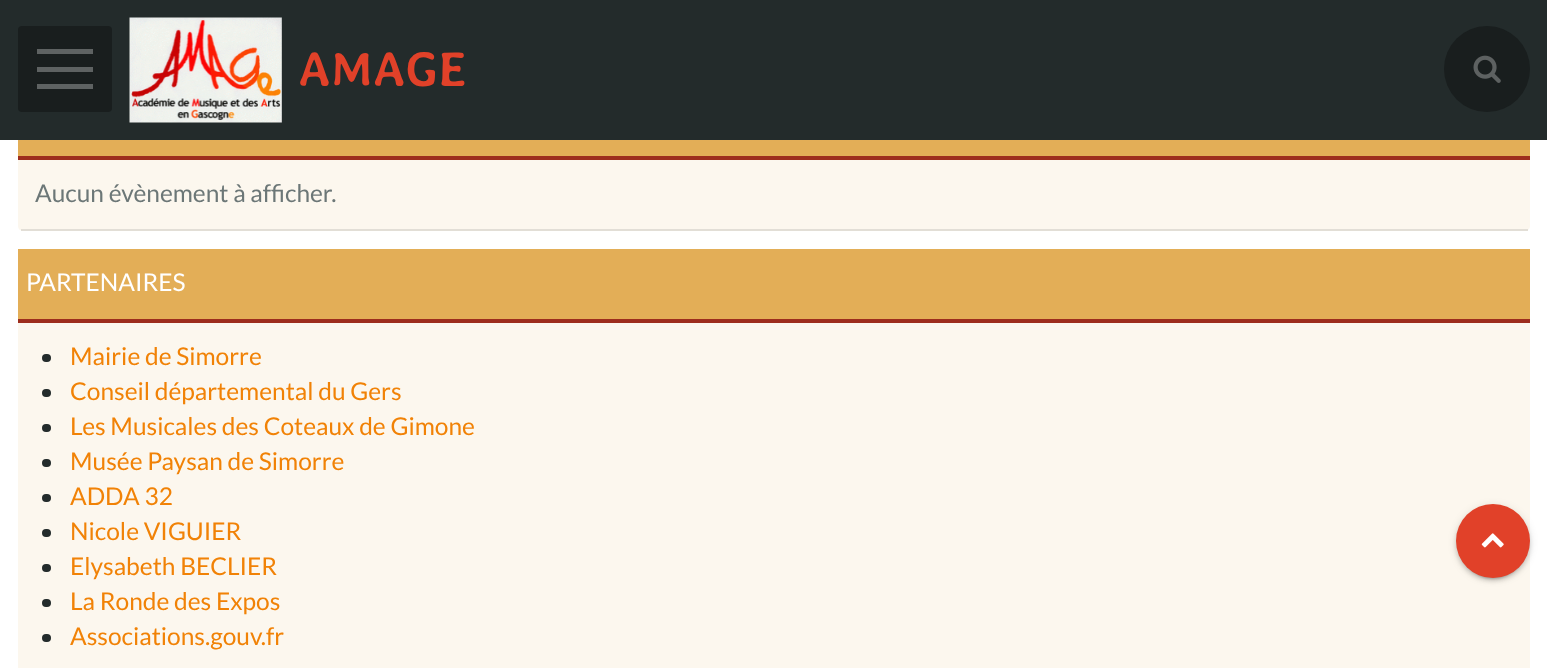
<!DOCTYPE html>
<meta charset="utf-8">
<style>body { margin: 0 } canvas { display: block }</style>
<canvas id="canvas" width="1547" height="668"></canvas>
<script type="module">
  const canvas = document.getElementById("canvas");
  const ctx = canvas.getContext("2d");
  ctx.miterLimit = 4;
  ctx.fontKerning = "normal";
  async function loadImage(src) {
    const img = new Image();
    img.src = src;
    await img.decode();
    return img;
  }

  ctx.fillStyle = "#ffffff";
  ctx.fillRect(0, 0, 1547, 668);
  ctx.fillStyle = "#fcf7ee";
  ctx.beginPath();
  ctx.roundRect(18, 86, 1512, 145, 5);
  ctx.fill();
  ctx.fillStyle = "#232b2b";
  ctx.fillRect(0, 0, 1547, 140);
  ctx.fillStyle = "#191e1e";
  ctx.beginPath();
  ctx.roundRect(18, 26, 94, 86, 4);
  ctx.fill();
  ctx.fillStyle = "#5e6262";
  ctx.fillRect(37, 67, 56, 5);
  ctx.fillRect(37, 49, 56, 5);
  ctx.fillRect(37, 84, 56, 5);
  ctx.drawImage(await loadImage("img1.png"), 129, 17, 153, 106);
  ctx.font = "bold 49px Averia Libre";
  ctx.fillStyle = "#e14129";
  ctx.fillText("AMAGE", 298, 86);
  ctx.fillStyle = "#191e1e";
  ctx.beginPath();
  ctx.arc(1487, 69, 43, 0, Math.PI * 2);
  ctx.fill();
  ctx.drawImage(await loadImage("img2.png"), 1473, 55, 28, 28);
  ctx.fillStyle = "#e2ded6";
  ctx.fillRect(21, 229, 1507, 2);
  ctx.fillStyle = "#e3ae57";
  ctx.fillRect(18, 140, 1512, 16);
  ctx.fillStyle = "#9d2d1d";
  ctx.fillRect(18, 156, 1512, 4);
  ctx.font = "24.5px Lato";
  ctx.fillStyle = "#6c7777";
  ctx.fillText("Aucun évènement à afficher.", 35, 202);
  ctx.fillStyle = "#fcf7ee";
  ctx.fillRect(18, 323, 1512, 345);
  ctx.fillStyle = "#e3ae57";
  ctx.fillRect(18, 249, 1512, 70);
  ctx.fillStyle = "#9d2d1d";
  ctx.fillRect(18, 319, 1512, 4);
  ctx.fillStyle = "#ffffff";
  ctx.fillText("PARTENAIRES", 26, 291);
  ctx.fillStyle = "#232b2b";
  ctx.beginPath();
  ctx.roundRect(42, 354, 9, 8, 4);
  ctx.fill();
  ctx.fillStyle = "#f18206";
  ctx.fillText("Mairie de Simorre", 70, 365);
  ctx.fillStyle = "#232b2b";
  ctx.beginPath();
  ctx.roundRect(42, 389, 9, 8, 4);
  ctx.fill();
  ctx.fillStyle = "#f18206";
  ctx.fillText("Conseil départemental du Gers", 70, 400);
  ctx.fillStyle = "#232b2b";
  ctx.beginPath();
  ctx.roundRect(42, 424, 9, 8, 4);
  ctx.fill();
  ctx.fillStyle = "#f18206";
  ctx.fillText("Les Musicales des Coteaux de Gimone", 70, 435);
  ctx.fillStyle = "#232b2b";
  ctx.beginPath();
  ctx.roundRect(42, 459, 9, 8, 4);
  ctx.fill();
  ctx.fillStyle = "#f18206";
  ctx.fillText("Musée Paysan de Simorre", 70, 470);
  ctx.fillStyle = "#232b2b";
  ctx.beginPath();
  ctx.roundRect(42, 494, 9, 8, 4);
  ctx.fill();
  ctx.fillStyle = "#f18206";
  ctx.fillText("ADDA 32", 70, 505);
  ctx.fillStyle = "#232b2b";
  ctx.beginPath();
  ctx.roundRect(42, 529, 9, 8, 4);
  ctx.fill();
  ctx.fillStyle = "#f18206";
  ctx.fillText("Nicole VIGUIER", 70, 540);
  ctx.fillStyle = "#232b2b";
  ctx.beginPath();
  ctx.roundRect(42, 564, 9, 8, 4);
  ctx.fill();
  ctx.fillStyle = "#f18206";
  ctx.fillText("Elysabeth BECLIER", 70, 575);
  ctx.fillStyle = "#232b2b";
  ctx.beginPath();
  ctx.roundRect(42, 599, 9, 8, 4);
  ctx.fill();
  ctx.fillStyle = "#f18206";
  ctx.fillText("La Ronde des Expos", 70, 610);
  ctx.fillStyle = "#232b2b";
  ctx.beginPath();
  ctx.roundRect(42, 634, 9, 8, 4);
  ctx.fill();
  ctx.fillStyle = "#f18206";
  ctx.fillText("Associations.gouv.fr", 70, 645);
  ctx.fillStyle = "rgba(0, 0, 0, 0.12)";
  ctx.filter = "blur(4.5px)";
  ctx.beginPath();
  ctx.roundRect(1456, 506, 74, 73, 36.5);
  ctx.fill();
  ctx.filter = "none";
  ctx.fillStyle = "rgba(0, 0, 0, 0.2)";
  ctx.filter = "blur(1px)";
  ctx.beginPath();
  ctx.roundRect(1460, 513, 66, 66, 33);
  ctx.fill();
  ctx.filter = "none";
  ctx.fillStyle = "rgba(0, 0, 0, 0.14)";
  ctx.filter = "blur(2px)";
  ctx.beginPath();
  ctx.roundRect(1456, 508, 74, 73, 36.5);
  ctx.fill();
  ctx.filter = "none";
  ctx.fillStyle = "#e14129";
  ctx.beginPath();
  ctx.arc(1493, 541, 37, 0, Math.PI * 2);
  ctx.fill();
  ctx.drawImage(await loadImage("img3.png"), 1481, 533, 23, 15);
</script>
